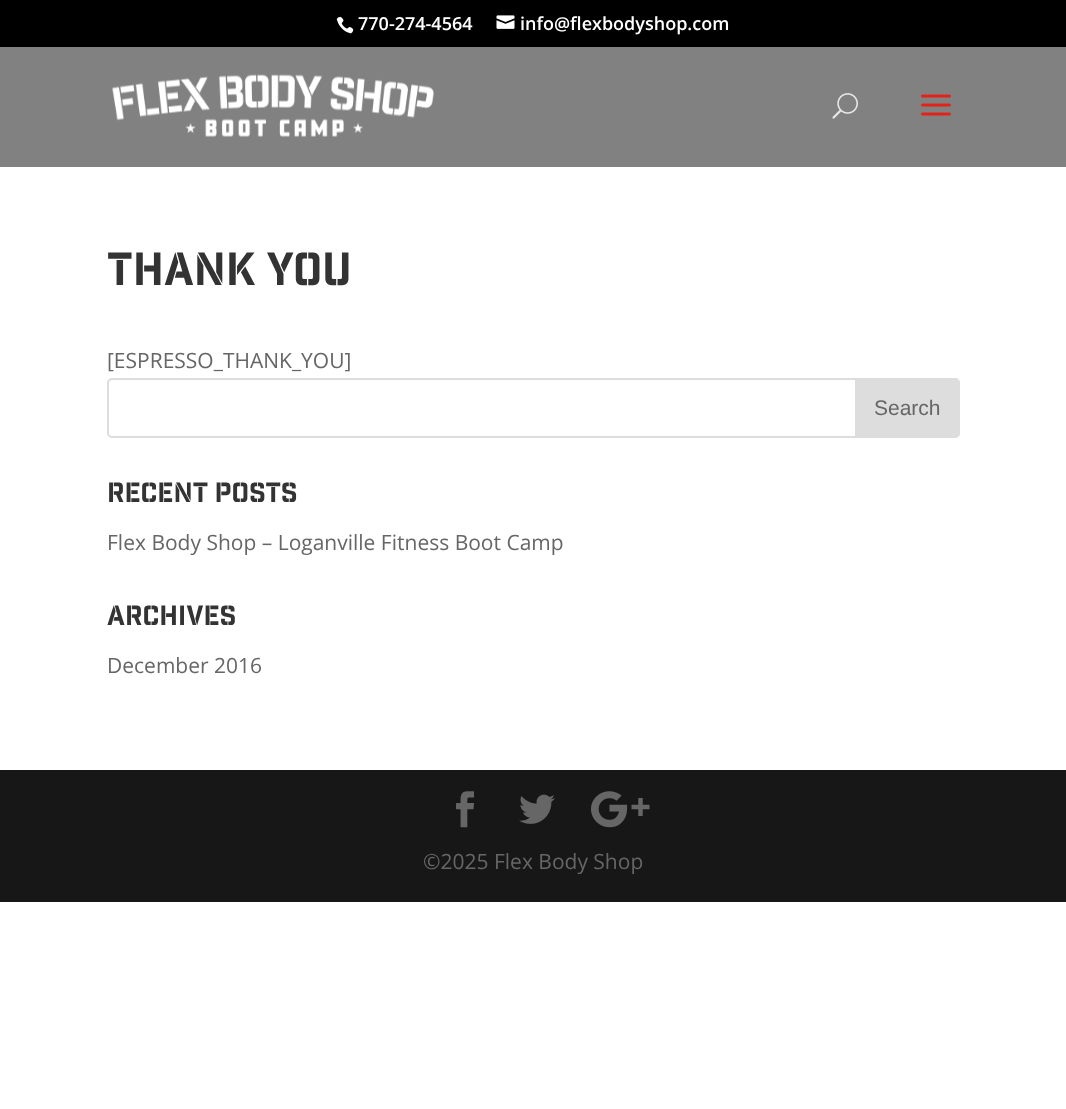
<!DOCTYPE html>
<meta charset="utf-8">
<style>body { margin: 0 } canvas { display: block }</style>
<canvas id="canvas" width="1066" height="1109"></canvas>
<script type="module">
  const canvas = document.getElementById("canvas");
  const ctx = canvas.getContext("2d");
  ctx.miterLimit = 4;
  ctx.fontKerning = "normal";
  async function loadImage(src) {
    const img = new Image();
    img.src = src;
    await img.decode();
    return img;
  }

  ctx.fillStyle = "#ffffff";
  ctx.fillRect(0, 0, 1066, 1109);
  ctx.fillStyle = "#000000";
  ctx.fillRect(0, 0, 1066, 47);
  ctx.drawImage(await loadImage("img1.png"), 336, 16, 18, 18);
  ctx.font = "600 18px Open Sans";
  ctx.fillStyle = "#ffffff";
  ctx.fillText("770-274-4564", 358, 30);
  ctx.drawImage(await loadImage("img2.png"), 496, 15, 19, 14);
  ctx.fillText("info@flexbodyshop.com", 520, 30);
  ctx.fillStyle = "#818181";
  ctx.fillRect(0, 47, 1066, 120);
  ctx.drawImage(await loadImage("img3.png"), 112, 74, 322, 63);
  ctx.drawImage(await loadImage("img4.png"), 832, 93, 26, 26);
  ctx.drawImage(await loadImage("img5.png"), 921, 94, 30, 22);
  ctx.font = "bold 45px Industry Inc";
  ctx.fillStyle = "#333333";
  ctx.fillText("Thank You", 107, 285);
  ctx.font = "21px Open Sans";
  ctx.fillStyle = "#666666";
  ctx.fillText("[ESPRESSO_THANK_YOU]", 107, 368);
  ctx.beginPath();
  ctx.roundRect(108, 379, 851, 58, 4);
  ctx.strokeStyle = "#dddddd";
  ctx.lineWidth = 2;
  ctx.stroke();
  ctx.fillStyle = "#dddddd";
  ctx.beginPath();
  ctx.roundRect(856, 379, 103, 58, [0, 4, 4, 0]);
  ctx.fill();
  ctx.stroke();
  ctx.font = "21px Liberation Sans";
  ctx.fillStyle = "#666666";
  ctx.fillText("Search", 874, 415);
  ctx.font = "bold 27px Industry Inc";
  ctx.fillStyle = "#333333";
  ctx.fillText("Recent Posts", 107, 502);
  ctx.font = "21px Open Sans";
  ctx.fillStyle = "#666666";
  ctx.fillText("Flex Body Shop – Loganville Fitness Boot Camp", 107, 550);
  ctx.font = "bold 27px Industry Inc";
  ctx.fillStyle = "#333333";
  ctx.fillText("Archives", 107, 625);
  ctx.font = "21px Open Sans";
  ctx.fillStyle = "#666666";
  ctx.fillText("December 2016", 107, 673);
  ctx.fillStyle = "#171717";
  ctx.fillRect(0, 770, 1066, 132);
  ctx.drawImage(await loadImage("img6.png"), 456, 791, 19, 37);
  ctx.drawImage(await loadImage("img7.png"), 519, 794, 36, 30);
  ctx.drawImage(await loadImage("img8.png"), 591, 791, 59, 37);
  ctx.fillStyle = "#666666";
  ctx.fillText("©2025 Flex Body Shop", 423, 869);
</script>
